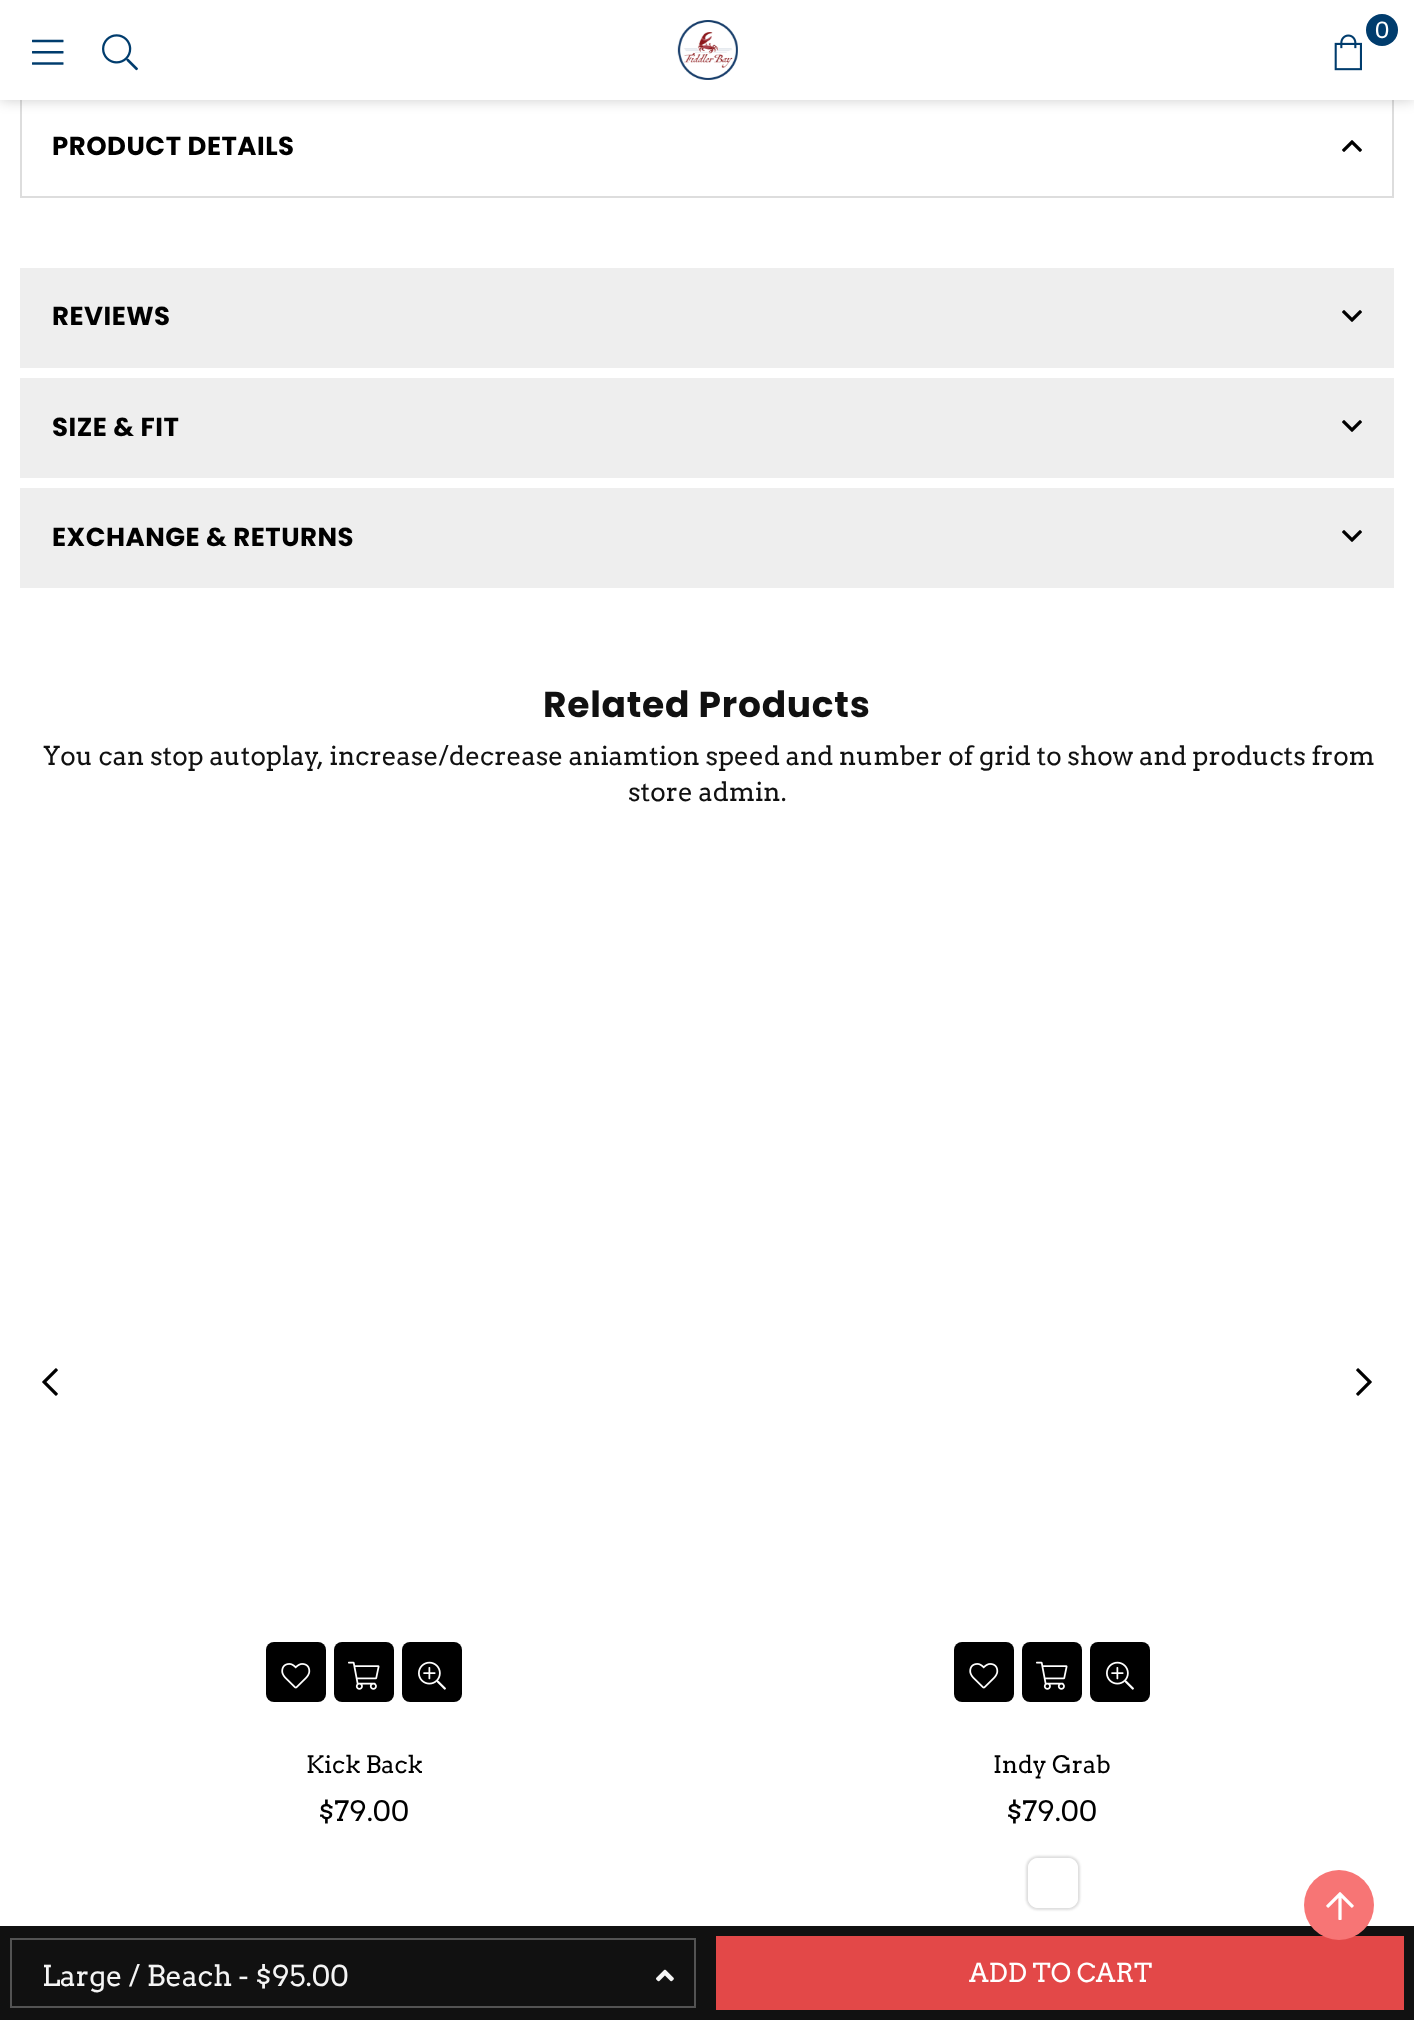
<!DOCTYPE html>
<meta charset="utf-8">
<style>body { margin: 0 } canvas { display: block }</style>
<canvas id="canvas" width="1414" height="2020"></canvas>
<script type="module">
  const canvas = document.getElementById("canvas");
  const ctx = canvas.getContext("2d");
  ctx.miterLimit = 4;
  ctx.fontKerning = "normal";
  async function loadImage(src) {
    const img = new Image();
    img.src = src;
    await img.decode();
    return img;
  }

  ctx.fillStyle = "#ffffff";
  ctx.fillRect(0, 0, 1414, 2020);
  ctx.strokeStyle = "#dddddd";
  ctx.lineWidth = 2;
  ctx.strokeRect(21, 99, 1372, 98);
  ctx.fillStyle = "rgba(0, 0, 0, 0.2)";
  ctx.filter = "blur(7px)";
  ctx.beginPath();
  ctx.rect(0, 0, 1414, 100);
  ctx.fill();
  ctx.filter = "none";
  ctx.fillStyle = "#ffffff";
  ctx.fillRect(0, 0, 1414, 100);
  ctx.drawImage(await loadImage("img1.png"), 677, 20, 61, 60);
  ctx.fillStyle = "#003c6d";
  ctx.beginPath();
  ctx.arc(1382, 30, 16, 0, Math.PI * 2);
  ctx.fill();
  ctx.font = "22px Arvo";
  ctx.fillStyle = "#ffffff";
  ctx.fillText("0", 1375, 38);
  ctx.drawImage(await loadImage("img2.png"), 1334, 34, 28, 37);
  ctx.drawImage(await loadImage("img3.png"), 32, 39, 32, 26);
  ctx.drawImage(await loadImage("img4.png"), 102, 34, 36, 37);
  ctx.letterSpacing = "0.5px";
  ctx.font = "bold 26px Poppins";
  ctx.fillStyle = "#000000";
  ctx.fillText("PRODUCT DETAILS", 52, 155);
  ctx.drawImage(await loadImage("img5.png"), 1342, 140, 20, 12);
  ctx.fillStyle = "#eeeeee";
  ctx.fillRect(20, 268, 1374, 100);
  ctx.fillStyle = "#000000";
  ctx.fillText("REVIEWS", 52, 325);
  ctx.drawImage(await loadImage("img6.png"), 1342, 310, 20, 12);
  ctx.fillStyle = "#eeeeee";
  ctx.fillRect(20, 378, 1374, 100);
  ctx.fillStyle = "#000000";
  ctx.fillText("SIZE & FIT", 52, 436);
  ctx.drawImage(await loadImage("img6.png"), 1342, 420, 20, 12);
  ctx.fillStyle = "#eeeeee";
  ctx.fillRect(20, 488, 1374, 100);
  ctx.fillStyle = "#000000";
  ctx.fillText("EXCHANGE & RETURNS", 52, 546);
  ctx.drawImage(await loadImage("img6.png"), 1342, 530, 20, 12);
  ctx.fillStyle = "#111111";
  ctx.fillRect(0, 1926, 1414, 94);
  ctx.strokeStyle = "#535353";
  ctx.strokeRect(11, 1939, 684, 68);
  ctx.letterSpacing = "0px";
  ctx.font = "28.6px Arvo";
  ctx.fillStyle = "#f5f5f5";
  ctx.fillText("Large / Beach - $95.00", 42, 1986);
  ctx.drawImage(await loadImage("img7.png"), 656, 1969, 18, 13);
  ctx.fillStyle = "#e34848";
  ctx.fillRect(716, 1936, 688, 74);
  ctx.font = "26px Arvo";
  ctx.fillStyle = "#ffffff";
  ctx.fillText("ADD TO CART", 969, 1982);
  ctx.letterSpacing = "0.75px";
  ctx.font = "bold 36px Poppins";
  ctx.fillStyle = "#111111";
  ctx.fillText("Related Products", 543, 717);
  ctx.letterSpacing = "0px";
  ctx.font = "26px Arvo";
  ctx.fillText("You can stop autoplay, increase/decrease aniamtion speed and number of grid to show and products from", 43, 765);
  ctx.fillText("store admin.", 628, 801);
  ctx.drawImage(await loadImage("img8.png"), 42, 1368, 16, 28);
  ctx.drawImage(await loadImage("img9.png"), 1356, 1368, 16, 28);
  ctx.fillStyle = "#000000";
  ctx.beginPath();
  ctx.roundRect(266, 1642, 60, 60, 8);
  ctx.fill();
  ctx.drawImage(await loadImage("img10.png"), 281, 1663, 30, 26);
  ctx.beginPath();
  ctx.roundRect(334, 1642, 60, 60, 8);
  ctx.fill();
  ctx.drawImage(await loadImage("img11.png"), 348, 1661, 32, 29);
  ctx.beginPath();
  ctx.roundRect(402, 1642, 60, 60, 8);
  ctx.fill();
  ctx.drawImage(await loadImage("img12.png"), 418, 1661, 28, 29);
  ctx.font = "24px Arvo";
  ctx.fillText("Kick Back", 306, 1773);
  ctx.font = "28px Arvo";
  ctx.fillText("$79.00", 318, 1821);
  ctx.beginPath();
  ctx.roundRect(954, 1642, 60, 60, 8);
  ctx.fill();
  ctx.drawImage(await loadImage("img10.png"), 969, 1663, 30, 26);
  ctx.beginPath();
  ctx.roundRect(1022, 1642, 60, 60, 8);
  ctx.fill();
  ctx.drawImage(await loadImage("img11.png"), 1036, 1661, 32, 29);
  ctx.beginPath();
  ctx.roundRect(1090, 1642, 60, 60, 8);
  ctx.fill();
  ctx.drawImage(await loadImage("img12.png"), 1106, 1661, 28, 29);
  ctx.font = "24px Arvo";
  ctx.fillText("Indy Grab", 993, 1773);
  ctx.font = "28px Arvo";
  ctx.fillText("$79.00", 1006, 1821);
  ctx.save();
  ctx.beginPath();
  ctx.moveTo(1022, 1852);
  ctx.lineTo(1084, 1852);
  ctx.lineTo(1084, 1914);
  ctx.lineTo(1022, 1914);
  ctx.closePath();
  ctx.moveTo(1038, 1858);
  ctx.lineTo(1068, 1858);
  ctx.bezierCurveTo(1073.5, 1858, 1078, 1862.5, 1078, 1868);
  ctx.lineTo(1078, 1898);
  ctx.bezierCurveTo(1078, 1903.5, 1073.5, 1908, 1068, 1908);
  ctx.lineTo(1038, 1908);
  ctx.bezierCurveTo(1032.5, 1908, 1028, 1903.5, 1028, 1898);
  ctx.lineTo(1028, 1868);
  ctx.bezierCurveTo(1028, 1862.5, 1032.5, 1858, 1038, 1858);
  ctx.closePath();
  ctx.clip("evenodd");
  ctx.fillStyle = "#dddddd";
  ctx.filter = "blur(1px)";
  ctx.beginPath();
  ctx.roundRect(1026, 1856, 54, 54, 12);
  ctx.fill();
  ctx.filter = "none";
  ctx.restore();
  ctx.beginPath();
  ctx.roundRect(1030, 1860, 46, 46, 8);
  ctx.strokeStyle = "#ffffff";
  ctx.lineWidth = 4;
  ctx.stroke();
  ctx.fillStyle = "#f77575";
  ctx.beginPath();
  ctx.arc(1339, 1905, 35, 0, Math.PI * 2);
  ctx.fill();
  ctx.drawImage(await loadImage("img13.png"), 1326, 1892, 28, 28);
</script>
